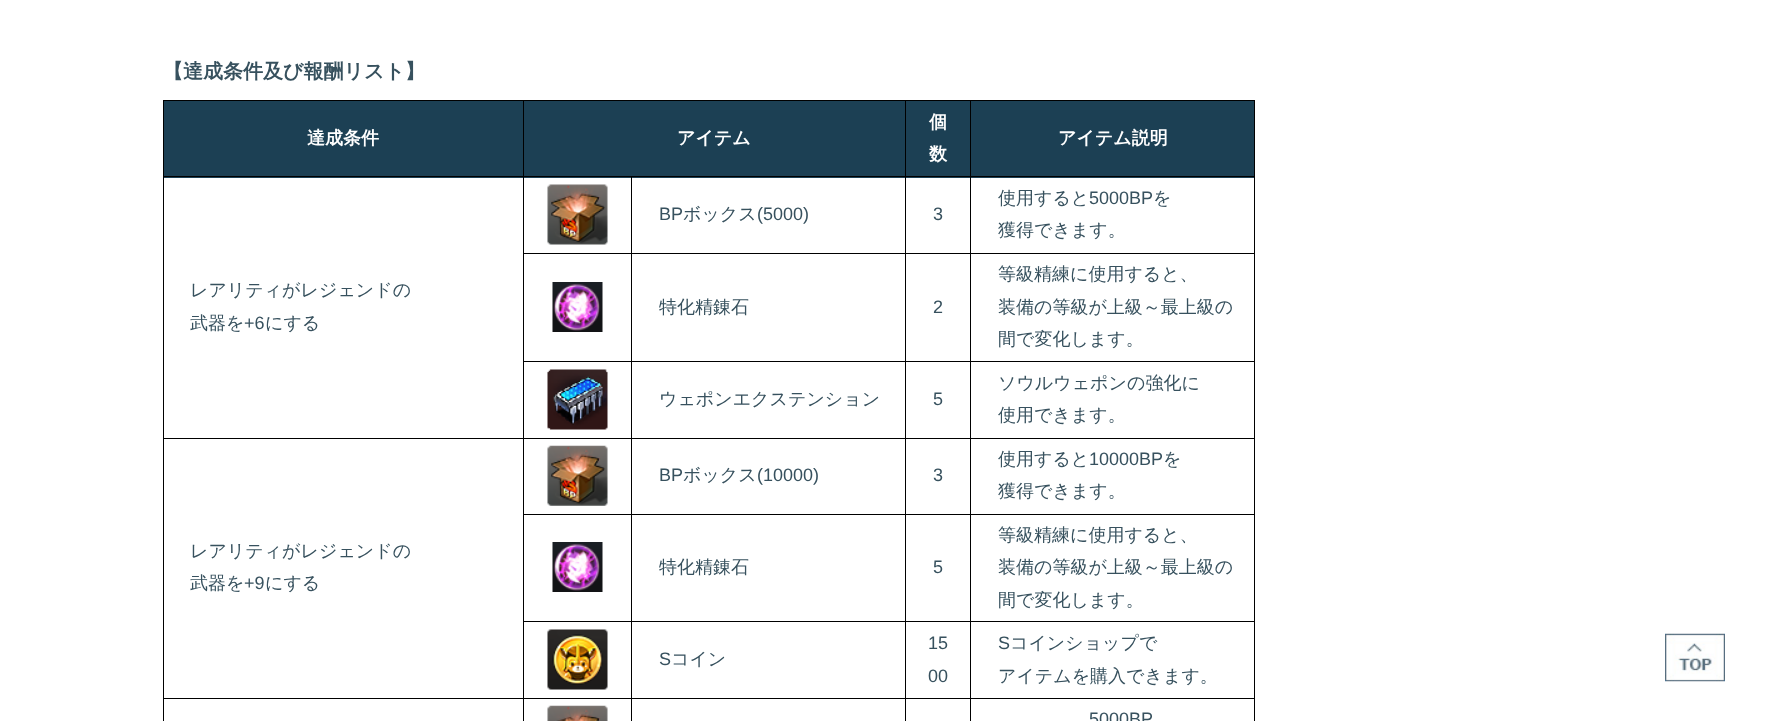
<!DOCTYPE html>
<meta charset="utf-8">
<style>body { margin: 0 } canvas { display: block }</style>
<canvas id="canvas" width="1765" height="721"></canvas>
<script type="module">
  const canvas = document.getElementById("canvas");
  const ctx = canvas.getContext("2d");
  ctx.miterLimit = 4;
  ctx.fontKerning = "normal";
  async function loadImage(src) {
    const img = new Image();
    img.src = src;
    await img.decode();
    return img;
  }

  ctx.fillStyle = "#ffffff";
  ctx.fillRect(0, 0, 1765, 721);
  ctx.font = "bold 20px WenQuanYi Zen Hei";
  ctx.fillStyle = "#37515e";
  ctx.fillText("【達成条件及び報酬リスト】", 163, 78);
  ctx.fillStyle = "#000000";
  ctx.fillRect(163, 100, 1092, 1);
  ctx.fillRect(1254, 100, 1, 621);
  ctx.fillRect(163, 100, 1, 621);
  ctx.fillStyle = "#1c4054";
  ctx.fillRect(164, 101, 359, 77);
  ctx.font = "bold 18px WenQuanYi Zen Hei";
  ctx.fillStyle = "#ffffff";
  ctx.fillText("達成条件", 307, 144);
  ctx.fillStyle = "#1c4054";
  ctx.fillRect(524, 101, 381, 77);
  ctx.fillRect(906, 101, 64, 77);
  ctx.fillRect(971, 101, 283, 77);
  ctx.fillStyle = "#000000";
  ctx.fillRect(970, 176, 285, 1);
  ctx.fillRect(970, 253, 285, 1);
  ctx.fillRect(970, 361, 285, 1);
  ctx.fillRect(970, 438, 285, 1);
  ctx.fillRect(970, 514, 285, 1);
  ctx.fillRect(970, 621, 285, 1);
  ctx.fillRect(970, 698, 285, 1);
  ctx.fillRect(970, 698, 1, 23);
  ctx.fillRect(905, 698, 66, 1);
  ctx.fillRect(970, 621, 1, 78);
  ctx.fillRect(905, 621, 66, 1);
  ctx.fillRect(970, 514, 1, 109);
  ctx.fillRect(905, 514, 66, 1);
  ctx.fillRect(970, 438, 1, 77);
  ctx.fillRect(905, 438, 66, 1);
  ctx.fillRect(970, 361, 1, 78);
  ctx.fillRect(905, 361, 66, 1);
  ctx.fillRect(970, 253, 1, 110);
  ctx.fillRect(905, 253, 66, 1);
  ctx.fillRect(970, 176, 1, 78);
  ctx.fillRect(905, 176, 66, 1);
  ctx.fillRect(905, 698, 1, 23);
  ctx.fillRect(631, 698, 275, 1);
  ctx.fillRect(905, 621, 1, 78);
  ctx.fillRect(631, 621, 275, 1);
  ctx.fillRect(905, 514, 1, 109);
  ctx.fillRect(631, 514, 275, 1);
  ctx.fillRect(905, 438, 1, 77);
  ctx.fillRect(631, 438, 275, 1);
  ctx.fillRect(905, 361, 1, 78);
  ctx.fillRect(631, 361, 275, 1);
  ctx.fillRect(905, 253, 1, 110);
  ctx.fillRect(631, 253, 275, 1);
  ctx.fillRect(905, 176, 1, 78);
  ctx.fillRect(631, 176, 275, 1);
  ctx.fillRect(631, 698, 1, 23);
  ctx.fillRect(523, 698, 110, 1);
  ctx.fillRect(631, 621, 1, 78);
  ctx.fillRect(523, 621, 110, 1);
  ctx.fillRect(631, 514, 1, 109);
  ctx.fillRect(523, 514, 110, 1);
  ctx.fillRect(631, 438, 1, 77);
  ctx.fillRect(523, 438, 110, 1);
  ctx.fillRect(631, 361, 1, 78);
  ctx.fillRect(523, 361, 110, 1);
  ctx.fillRect(631, 253, 1, 110);
  ctx.fillRect(523, 253, 110, 1);
  ctx.fillRect(631, 176, 1, 78);
  ctx.fillRect(523, 176, 110, 1);
  ctx.fillRect(523, 698, 1, 23);
  ctx.fillRect(163, 698, 361, 1);
  ctx.fillRect(523, 621, 1, 78);
  ctx.fillRect(523, 514, 1, 109);
  ctx.fillRect(523, 438, 1, 77);
  ctx.fillRect(163, 438, 361, 1);
  ctx.fillRect(523, 361, 1, 78);
  ctx.fillRect(523, 253, 1, 110);
  ctx.fillRect(523, 176, 1, 78);
  ctx.fillRect(163, 176, 361, 1);
  ctx.fillRect(523, 100, 1, 78);
  ctx.fillStyle = "#ffffff";
  ctx.fillText("アイテム", 677, 144);
  ctx.fillStyle = "#000000";
  ctx.fillRect(905, 100, 1, 78);
  ctx.fillStyle = "#ffffff";
  ctx.fillText("個", 929, 128);
  ctx.fillText("数", 929, 160);
  ctx.fillStyle = "#000000";
  ctx.fillRect(970, 100, 1, 78);
  ctx.fillStyle = "#ffffff";
  ctx.fillText("アイテム説明", 1058, 144);
  ctx.drawImage(await loadImage("img1.png"), 547, 184, 61, 61);
  ctx.font = "18px Liberation Sans";
  ctx.fillStyle = "#37515e";
  ctx.fillText("BP", 659, 220);
  ctx.font = "500 18px WenQuanYi Zen Hei";
  ctx.fillText("ボックス", 683, 220);
  ctx.font = "18px Liberation Sans";
  ctx.fillText("(5000)", 757, 220);
  ctx.fillText("3", 933, 220);
  ctx.font = "500 18px WenQuanYi Zen Hei";
  ctx.fillText("使用すると", 998, 204);
  ctx.font = "18px Liberation Sans";
  ctx.fillText("5000BP", 1089, 204);
  ctx.font = "500 18px WenQuanYi Zen Hei";
  ctx.fillText("を", 1153, 204);
  ctx.fillText("獲得できます。", 998, 236);
  ctx.fillText("レアリティがレジェンドの", 190, 296);
  ctx.fillText("武器を", 190, 329);
  ctx.font = "18px Liberation Sans";
  ctx.fillText("+6", 244, 329);
  ctx.font = "500 18px WenQuanYi Zen Hei";
  ctx.fillText("にする", 265, 329);
  ctx.drawImage(await loadImage("img2.png"), 552, 282, 51, 50);
  ctx.fillText("特化精錬石", 659, 313);
  ctx.font = "18px Liberation Sans";
  ctx.fillText("2", 933, 313);
  ctx.font = "500 18px WenQuanYi Zen Hei";
  ctx.fillText("等級精練に使用すると、", 998, 280);
  ctx.fillText("装備の等級が上級～最上級の", 998, 313);
  ctx.fillText("間で変化します。", 998, 345);
  ctx.drawImage(await loadImage("img3.png"), 547, 369, 61, 61);
  ctx.fillText("ウェポンエクステンション", 659, 405);
  ctx.font = "18px Liberation Sans";
  ctx.fillText("5", 933, 405);
  ctx.font = "500 18px WenQuanYi Zen Hei";
  ctx.fillText("ソウルウェポンの強化に", 998, 389);
  ctx.fillText("使用できます。", 998, 421);
  ctx.drawImage(await loadImage("img4.png"), 547, 445, 61, 61);
  ctx.font = "18px Liberation Sans";
  ctx.fillText("BP", 659, 481);
  ctx.font = "500 18px WenQuanYi Zen Hei";
  ctx.fillText("ボックス", 683, 481);
  ctx.font = "18px Liberation Sans";
  ctx.fillText("(10000)", 757, 481);
  ctx.fillText("3", 933, 481);
  ctx.font = "500 18px WenQuanYi Zen Hei";
  ctx.fillText("使用すると", 998, 465);
  ctx.font = "18px Liberation Sans";
  ctx.fillText("10000BP", 1089, 465);
  ctx.font = "500 18px WenQuanYi Zen Hei";
  ctx.fillText("を", 1163, 465);
  ctx.fillText("獲得できます。", 998, 497);
  ctx.fillText("レアリティがレジェンドの", 190, 557);
  ctx.fillText("武器を", 190, 589);
  ctx.font = "18px Liberation Sans";
  ctx.fillText("+9", 244, 589);
  ctx.font = "500 18px WenQuanYi Zen Hei";
  ctx.fillText("にする", 265, 589);
  ctx.drawImage(await loadImage("img5.png"), 552, 542, 51, 50);
  ctx.fillText("特化精錬石", 659, 573);
  ctx.font = "18px Liberation Sans";
  ctx.fillText("5", 933, 573);
  ctx.font = "500 18px WenQuanYi Zen Hei";
  ctx.fillText("等級精練に使用すると、", 998, 541);
  ctx.fillText("装備の等級が上級～最上級の", 998, 573);
  ctx.fillText("間で変化します。", 998, 606);
  ctx.drawImage(await loadImage("img6.png"), 547, 629, 61, 61);
  ctx.font = "18px Liberation Sans";
  ctx.fillText("S", 659, 665);
  ctx.font = "500 18px WenQuanYi Zen Hei";
  ctx.fillText("コイン", 671, 665);
  ctx.font = "18px Liberation Sans";
  ctx.fillText("15", 928, 649);
  ctx.fillText("00", 928, 682);
  ctx.fillText("S", 998, 649);
  ctx.font = "500 18px WenQuanYi Zen Hei";
  ctx.fillText("コインショップで", 1010, 649);
  ctx.fillText("アイテムを購入できます。", 998, 682);
  ctx.drawImage(await loadImage("img7.png"), 547, 705, 61, 16);
  ctx.font = "18px Liberation Sans";
  ctx.fillText("5000BP", 1089, 725);
  ctx.drawImage(await loadImage("img8.png"), 1665, 633, 60, 49);
</script>
